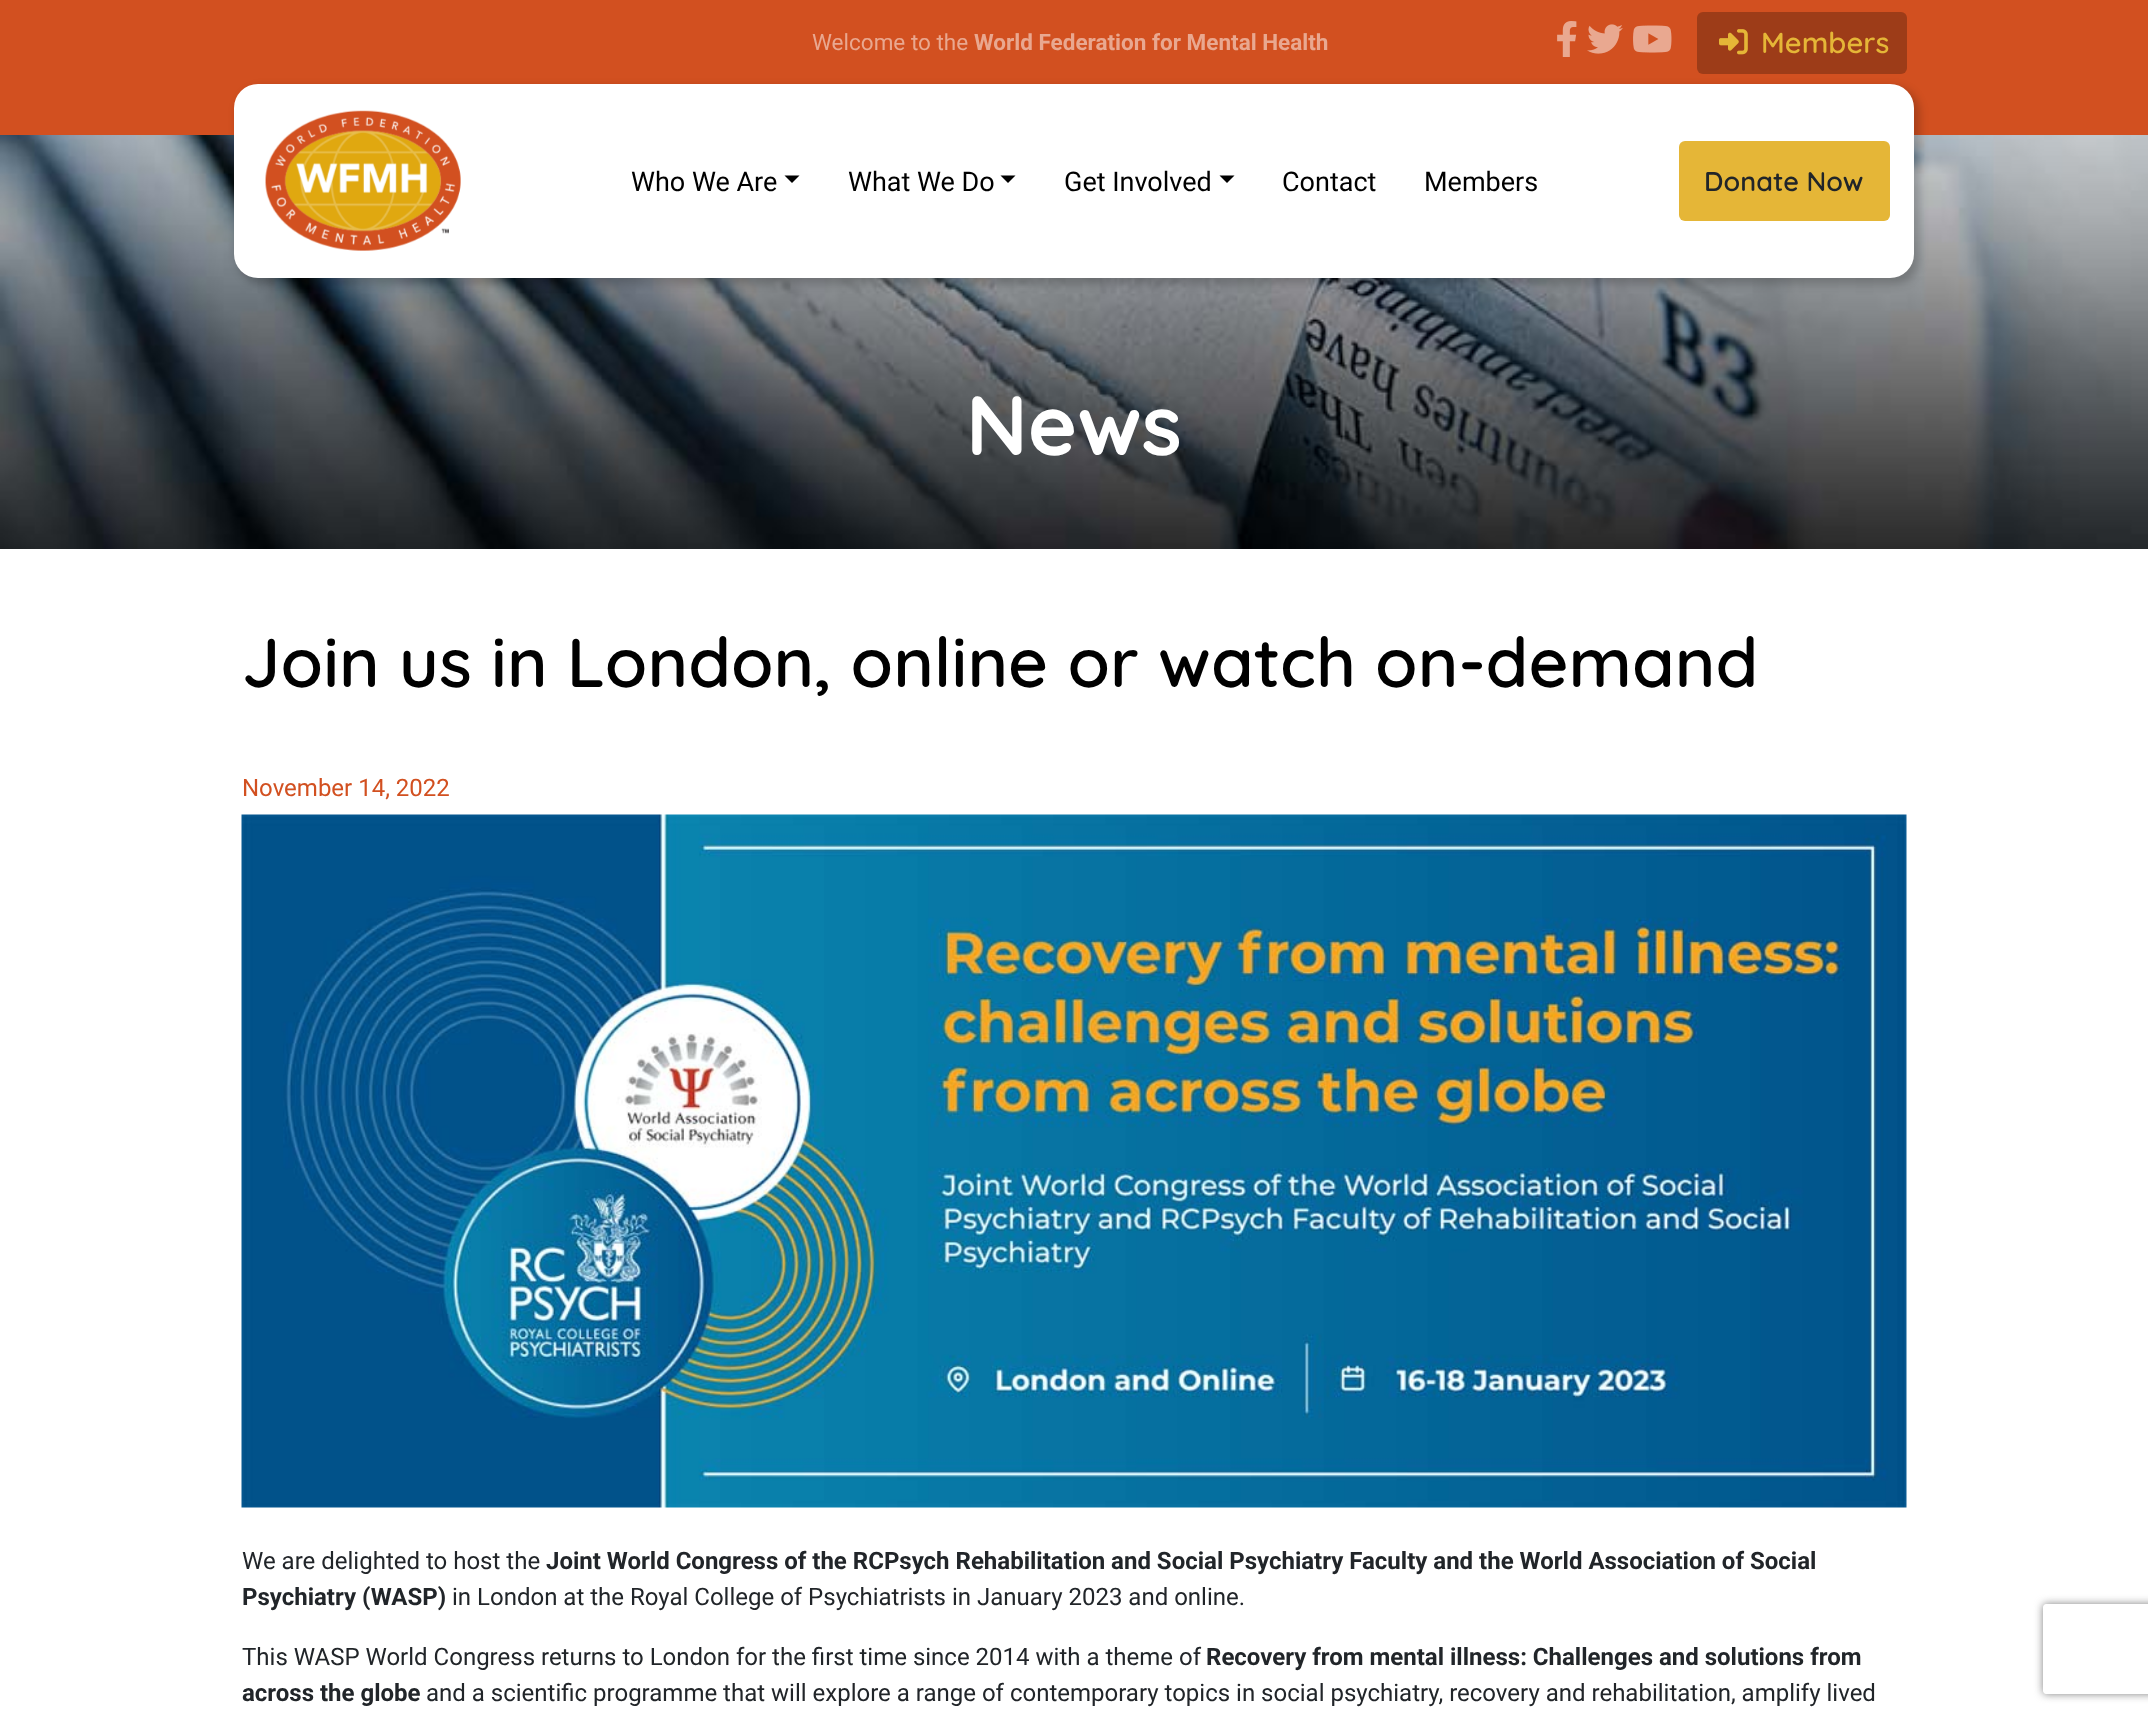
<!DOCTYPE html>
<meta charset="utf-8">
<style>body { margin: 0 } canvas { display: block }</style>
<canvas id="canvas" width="2148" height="1714"></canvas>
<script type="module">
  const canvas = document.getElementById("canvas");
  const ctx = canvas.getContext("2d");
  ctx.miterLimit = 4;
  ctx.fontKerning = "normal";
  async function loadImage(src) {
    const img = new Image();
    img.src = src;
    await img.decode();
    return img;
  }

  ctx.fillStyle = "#ffffff";
  ctx.fillRect(0, 0, 2148, 1714);
  ctx.fillStyle = "#d25020";
  ctx.fillRect(0, 0, 2148, 135);
  ctx.font = "22.5px Roboto";
  ctx.fillStyle = "#e9a890";
  ctx.fillText("Welcome to the", 812, 50);
  ctx.font = "bold 22.5px Roboto";
  ctx.fillText("World Federation for Mental Health", 974, 50);
  ctx.drawImage(await loadImage("img1.png"), 1557, 21, 20, 36);
  ctx.drawImage(await loadImage("img2.png"), 1587, 24, 36, 30);
  ctx.drawImage(await loadImage("img3.png"), 1633, 25, 39, 28);
  ctx.fillStyle = "#9d3c18";
  ctx.beginPath();
  ctx.roundRect(1697, 12, 210, 62, 6);
  ctx.fill();
  ctx.drawImage(await loadImage("img4.png"), 1719, 29, 29, 26);
  ctx.font = "600 29px Quicksand";
  ctx.fillStyle = "#e5b637";
  ctx.fillText("Members", 1761, 53);
  ctx.drawImage(await loadImage("img6.png"), 0, 135, 2148, 414);
  ctx.fillStyle = "rgba(0, 0, 0, 0.2)";
  ctx.filter = "blur(4px)";
  ctx.beginPath();
  ctx.roundRect(237, 87, 1683, 197, 26);
  ctx.fill();
  ctx.filter = "none";
  ctx.fillStyle = "#ffffff";
  ctx.beginPath();
  ctx.roundRect(234, 84, 1680, 194, 24);
  ctx.fill();
  ctx.drawImage(await loadImage("img5.png"), 265, 110, 196, 141);
  ctx.font = "27px Roboto";
  ctx.fillStyle = "#000000";
  ctx.fillText("Who We Are", 631, 191);
  ctx.beginPath();
  ctx.moveTo(784.5, 175.5);
  ctx.lineTo(799.5, 175.5);
  ctx.lineTo(792, 183);
  ctx.closePath();
  ctx.fill();
  ctx.fillText("What We Do", 848, 191);
  ctx.beginPath();
  ctx.moveTo(1000.5, 175.5);
  ctx.lineTo(1015.5, 175.5);
  ctx.lineTo(1008, 183);
  ctx.closePath();
  ctx.fill();
  ctx.fillText("Get Involved", 1064, 191);
  ctx.beginPath();
  ctx.moveTo(1219.5, 175.5);
  ctx.lineTo(1234.5, 175.5);
  ctx.lineTo(1227, 183);
  ctx.closePath();
  ctx.fill();
  ctx.fillText("Contact", 1282, 191);
  ctx.fillText("Members", 1424, 191);
  ctx.fillStyle = "#e5b637";
  ctx.beginPath();
  ctx.roundRect(1679, 141, 211, 80, 6);
  ctx.fill();
  ctx.font = "600 27px Quicksand";
  ctx.fillStyle = "#212529";
  ctx.fillText("Donate Now", 1704, 191);
  ctx.font = "bold 84px Quicksand";
  ctx.fillStyle = "#ffffff";
  ctx.fillText("News", 966, 455);
  ctx.font = "600 69px Quicksand";
  ctx.fillStyle = "#000000";
  ctx.fillText("Join us in London, online or watch on-demand", 242, 687);
  ctx.font = "24px Roboto";
  ctx.fillStyle = "#d25020";
  ctx.fillText("November 14, 2022", 242, 796);
  ctx.drawImage(await loadImage("img7.png"), 241, 814, 1666, 694);
  ctx.fillStyle = "#212529";
  ctx.fillText("We are delighted to host the", 242, 1569);
  ctx.font = "bold 24px Roboto";
  ctx.fillText("Joint World Congress of the RCPsych Rehabilitation and Social Psychiatry Faculty and the World Association of Social", 546, 1569);
  ctx.fillText("Psychiatry (WASP)", 242, 1605);
  ctx.font = "24px Roboto";
  ctx.fillText("in London at the Royal College of Psychiatrists in January 2023 and online.", 452, 1605);
  ctx.fillText("This WASP World Congress returns to London for the first time since 2014 with a theme of", 242, 1665);
  ctx.font = "bold 24px Roboto";
  ctx.fillText("Recovery from mental illness: Challenges and solutions from", 1206, 1665);
  ctx.fillText("across the globe", 242, 1701);
  ctx.font = "24px Roboto";
  ctx.fillText("and a scientific programme that will explore a range of contemporary topics in social psychiatry, recovery and rehabilitation, amplify lived", 426, 1701);
  ctx.save();
  ctx.beginPath();
  ctx.moveTo(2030, 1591);
  ctx.lineTo(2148, 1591);
  ctx.lineTo(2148, 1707);
  ctx.lineTo(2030, 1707);
  ctx.closePath();
  ctx.moveTo(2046, 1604);
  ctx.lineTo(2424, 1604);
  ctx.bezierCurveTo(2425.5, 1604, 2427, 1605.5, 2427, 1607);
  ctx.lineTo(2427, 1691);
  ctx.bezierCurveTo(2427, 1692.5, 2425.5, 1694, 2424, 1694);
  ctx.lineTo(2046, 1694);
  ctx.bezierCurveTo(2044.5, 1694, 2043, 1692.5, 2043, 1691);
  ctx.lineTo(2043, 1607);
  ctx.bezierCurveTo(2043, 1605.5, 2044.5, 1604, 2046, 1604);
  ctx.closePath();
  ctx.clip("evenodd");
  ctx.fillStyle = "#808080";
  ctx.filter = "blur(4px)";
  ctx.beginPath();
  ctx.roundRect(2043, 1604, 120, 90, 3);
  ctx.fill();
  ctx.filter = "none";
  ctx.restore();
</script>
